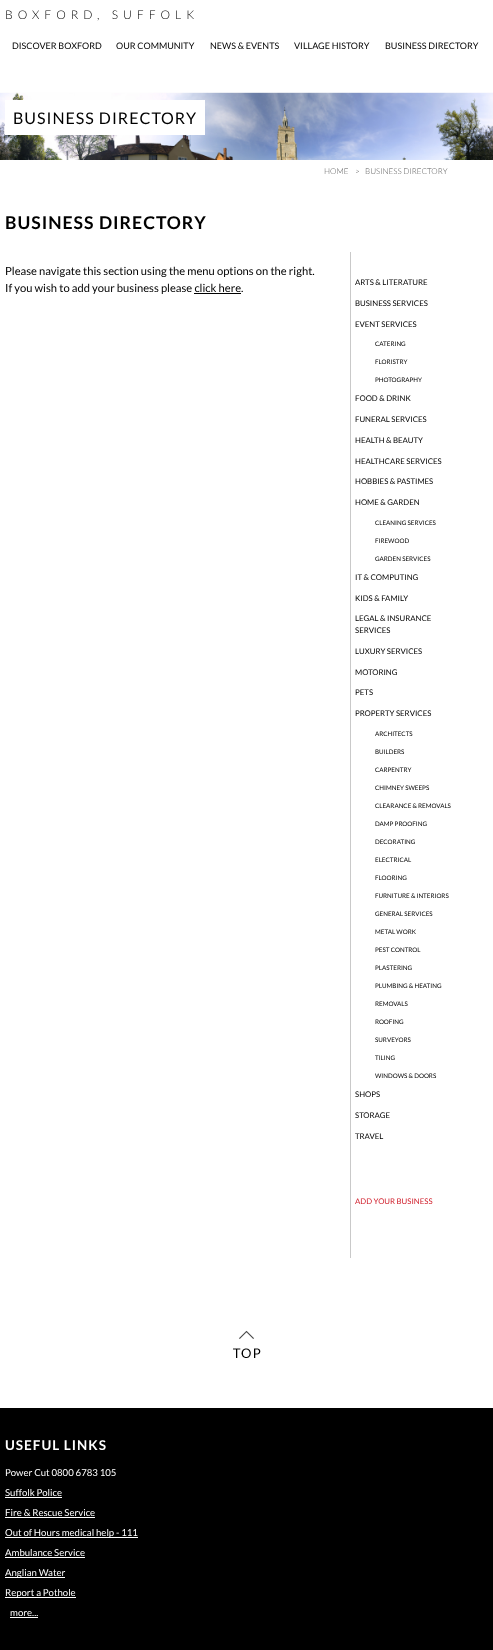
<!DOCTYPE html>
<meta charset="utf-8">
<style>body { margin: 0 } canvas { display: block }</style>
<canvas id="canvas" width="493" height="1650"></canvas>
<script type="module">
  const canvas = document.getElementById("canvas");
  const ctx = canvas.getContext("2d");
  ctx.miterLimit = 4;
  ctx.fontKerning = "normal";
  async function loadImage(src) {
    const img = new Image();
    img.src = src;
    await img.decode();
    return img;
  }

  ctx.fillStyle = "#ffffff";
  ctx.fillRect(0, 0, 493, 1650);
  ctx.letterSpacing = "5px";
  ctx.font = "300 12px Lato";
  ctx.fillStyle = "#000000";
  ctx.fillText("BOXFORD, SUFFOLK", 5, 19);
  ctx.letterSpacing = "0px";
  ctx.font = "9px Lato";
  ctx.fillText("DISCOVER BOXFORD", 12, 49);
  ctx.fillText("OUR COMMUNITY", 116, 49);
  ctx.fillText("NEWS & EVENTS", 210, 49);
  ctx.fillText("VILLAGE HISTORY", 294, 49);
  ctx.fillText("BUSINESS DIRECTORY", 385, 49);
  ctx.drawImage(await loadImage("img1.png"), 0, 92, 493, 68);
  ctx.fillStyle = "#ffffff";
  ctx.fillRect(5, 100, 200, 35);
  ctx.letterSpacing = "1px";
  ctx.font = "16px Lato";
  ctx.fillStyle = "#000000";
  ctx.fillText("BUSINESS DIRECTORY", 13, 124);
  ctx.letterSpacing = "0px";
  ctx.font = "300 8px Lato";
  ctx.fillStyle = "#575757";
  ctx.fillText("HOME", 324, 174);
  ctx.fillText(">", 355, 174);
  ctx.fillText("BUSINESS DIRECTORY", 365, 174);
  ctx.letterSpacing = "1px";
  ctx.font = "bold 17.6px Lato";
  ctx.fillStyle = "#000000";
  ctx.fillText("BUSINESS DIRECTORY", 5, 229);
  ctx.letterSpacing = "0px";
  ctx.font = "11.2px Lato";
  ctx.fillText("Please navigate this section using the menu options on the right.", 5, 275);
  ctx.fillText("If you wish to add your business please click here.", 5, 292);
  ctx.fillRect(194, 293, 47, 1);
  ctx.fillStyle = "#c9c9c9";
  ctx.fillRect(350, 252, 1, 1006);
  ctx.font = "7.8px Lato";
  ctx.fillStyle = "#000000";
  ctx.fillText("ARTS & LITERATURE", 355, 285);
  ctx.fillText("BUSINESS SERVICES", 355, 306);
  ctx.fillText("EVENT SERVICES", 355, 327);
  ctx.font = "6.25px Lato";
  ctx.fillText("CATERING", 375, 346);
  ctx.fillText("FLORISTRY", 375, 364);
  ctx.fillText("PHOTOGRAPHY", 375, 382);
  ctx.font = "7.8px Lato";
  ctx.fillText("FOOD & DRINK", 355, 401);
  ctx.fillText("FUNERAL SERVICES", 355, 422);
  ctx.fillText("HEALTH & BEAUTY", 355, 443);
  ctx.fillText("HEALTHCARE SERVICES", 355, 464);
  ctx.fillText("HOBBIES & PASTIMES", 355, 484);
  ctx.fillText("HOME & GARDEN", 355, 505);
  ctx.font = "6.25px Lato";
  ctx.fillText("CLEANING SERVICES", 375, 525);
  ctx.fillText("FIREWOOD", 375, 543);
  ctx.fillText("GARDEN SERVICES", 375, 561);
  ctx.font = "7.8px Lato";
  ctx.fillText("IT & COMPUTING", 355, 580);
  ctx.fillText("KIDS & FAMILY", 355, 601);
  ctx.fillText("LEGAL & INSURANCE", 355, 621);
  ctx.fillText("SERVICES", 355, 633);
  ctx.fillText("LUXURY SERVICES", 355, 654);
  ctx.fillText("MOTORING", 355, 675);
  ctx.fillText("PETS", 355, 695);
  ctx.fillText("PROPERTY SERVICES", 355, 716);
  ctx.font = "6.25px Lato";
  ctx.fillText("ARCHITECTS", 375, 736);
  ctx.fillText("BUILDERS", 375, 754);
  ctx.fillText("CARPENTRY", 375, 772);
  ctx.fillText("CHIMNEY SWEEPS", 375, 790);
  ctx.fillText("CLEARANCE & REMOVALS", 375, 808);
  ctx.fillText("DAMP PROOFING", 375, 826);
  ctx.fillText("DECORATING", 375, 844);
  ctx.fillText("ELECTRICAL", 375, 862);
  ctx.fillText("FLOORING", 375, 880);
  ctx.fillText("FURNITURE & INTERIORS", 375, 898);
  ctx.fillText("GENERAL SERVICES", 375, 916);
  ctx.fillText("METAL WORK", 375, 934);
  ctx.fillText("PEST CONTROL", 375, 952);
  ctx.fillText("PLASTERING", 375, 970);
  ctx.fillText("PLUMBING & HEATING", 375, 988);
  ctx.fillText("REMOVALS", 375, 1006);
  ctx.fillText("ROOFING", 375, 1024);
  ctx.fillText("SURVEYORS", 375, 1042);
  ctx.fillText("TILING", 375, 1060);
  ctx.fillText("WINDOWS & DOORS", 375, 1078);
  ctx.font = "7.8px Lato";
  ctx.fillText("SHOPS", 355, 1097);
  ctx.fillText("STORAGE", 355, 1118);
  ctx.fillText("TRAVEL", 355, 1139);
  ctx.fillStyle = "#d01d2a";
  ctx.fillText("ADD YOUR BUSINESS", 355, 1204);
  ctx.drawImage(await loadImage("img2.png"), 233, 1330, 28, 28);
  ctx.fillStyle = "#000000";
  ctx.fillRect(0, 1408, 493, 242);
  ctx.letterSpacing = "1px";
  ctx.font = "bold 13.5px Lato";
  ctx.fillStyle = "#ffffff";
  ctx.fillText("USEFUL LINKS", 5, 1450);
  ctx.letterSpacing = "0px";
  ctx.font = "9.6px Lato";
  ctx.fillText("Power Cut 0800 6783 105", 5, 1476);
  ctx.fillText("Suffolk Police", 5, 1496);
  ctx.fillRect(5, 1497, 57, 1);
  ctx.fillText("Fire & Rescue Service", 5, 1516);
  ctx.fillRect(5, 1517, 90, 1);
  ctx.fillRect(5, 1537, 133, 1);
  ctx.fillText("Out of Hours medical help - 111", 5, 1536);
  ctx.fillText("Ambulance Service", 5, 1556);
  ctx.fillRect(5, 1557, 80, 1);
  ctx.fillRect(5, 1577, 60, 1);
  ctx.fillText("Anglian Water", 5, 1576);
  ctx.fillRect(5, 1597, 71, 1);
  ctx.fillText("Report a Pothole", 5, 1596);
  ctx.fillText("more...", 10, 1616);
  ctx.fillRect(10, 1617, 28, 1);
</script>
